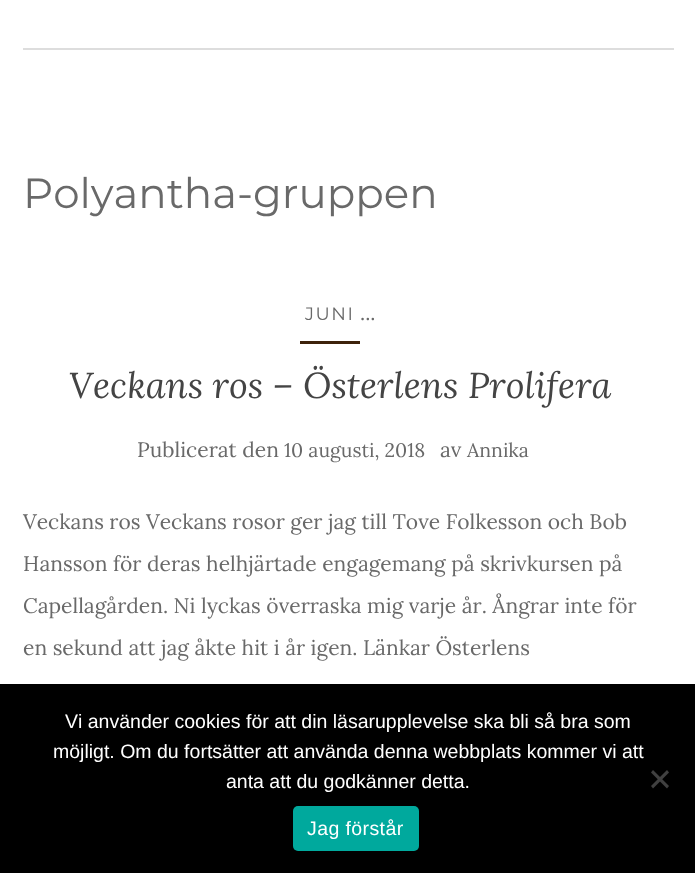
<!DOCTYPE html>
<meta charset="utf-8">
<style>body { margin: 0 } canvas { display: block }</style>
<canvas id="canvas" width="695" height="873"></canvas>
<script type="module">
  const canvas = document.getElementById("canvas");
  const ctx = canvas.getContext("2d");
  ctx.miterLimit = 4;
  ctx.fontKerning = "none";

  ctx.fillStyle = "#ffffff";
  ctx.fillRect(0, 0, 695, 873);
  ctx.fillStyle = "#dddddd";
  ctx.fillRect(23, 48, 651, 2);
  ctx.font = "42px Montserrat";
  ctx.fillStyle = "#696969";
  ctx.fillText("Polyantha-gruppen", 23, 208);
  ctx.letterSpacing = "1.5px";
  ctx.font = "18px Montserrat";
  ctx.fillText("JUNI", 305, 320);
  ctx.fillStyle = "#3d220b";
  ctx.fillRect(300, 341, 60, 3);
  ctx.letterSpacing = "0px";
  ctx.font = "21px Lora";
  ctx.fillStyle = "#696969";
  ctx.fillText("...", 360, 320);
  ctx.font = "italic 36px Lora";
  ctx.fillStyle = "#444444";
  ctx.fillText("Veckans ros – Österlens Prolifera", 69, 398);
  ctx.font = "21px Lora";
  ctx.fillStyle = "#696969";
  ctx.fillText("Publicerat den", 137, 457);
  ctx.font = "19.5px Lora";
  ctx.fillText("10 augusti, 2018", 284, 457);
  ctx.font = "21px Lora";
  ctx.fillText("av", 440, 457);
  ctx.font = "19.5px Lora";
  ctx.fillText("Annika", 467, 457);
  ctx.font = "21px Lora";
  ctx.fillText("Veckans ros Veckans rosor ger jag till Tove Folkesson och Bob", 23, 529);
  ctx.fillText("Hansson för deras helhjärtade engagemang på skrivkursen på", 23, 571);
  ctx.fillText("Capellagården. Ni lyckas överraska mig varje år. Ångrar inte för", 23, 613);
  ctx.fillText("en sekund att jag åkte hit i år igen. Länkar Österlens", 23, 655);
  ctx.fillStyle = "#000000";
  ctx.fillRect(0, 684, 695, 189);
  ctx.font = "19.5px Liberation Sans";
  ctx.fillStyle = "#ffffff";
  ctx.fillText("Vi använder cookies för att din läsarupplevelse ska bli så bra som", 65, 728);
  ctx.fillText("möjligt. Om du fortsätter att använda denna webbplats kommer vi att", 53, 758);
  ctx.fillText("anta att du godkänner detta.", 226, 788);
  ctx.fillStyle = "#404040";
  ctx.beginPath();
  ctx.moveTo(667, 770);
  ctx.lineTo(669, 772.5);
  ctx.lineTo(653, 788.5);
  ctx.lineTo(651, 786);
  ctx.closePath();
  ctx.fill();
  ctx.beginPath();
  ctx.moveTo(651, 772.5);
  ctx.lineTo(653, 770);
  ctx.lineTo(669, 786);
  ctx.lineTo(667, 788.5);
  ctx.closePath();
  ctx.fill();
  ctx.fillStyle = "#00a99d";
  ctx.beginPath();
  ctx.roundRect(293, 806, 126, 45, 5);
  ctx.fill();
  ctx.letterSpacing = "0.4px";
  ctx.fillStyle = "#ffffff";
  ctx.fillText("Jag förstår", 307, 835);
</script>
